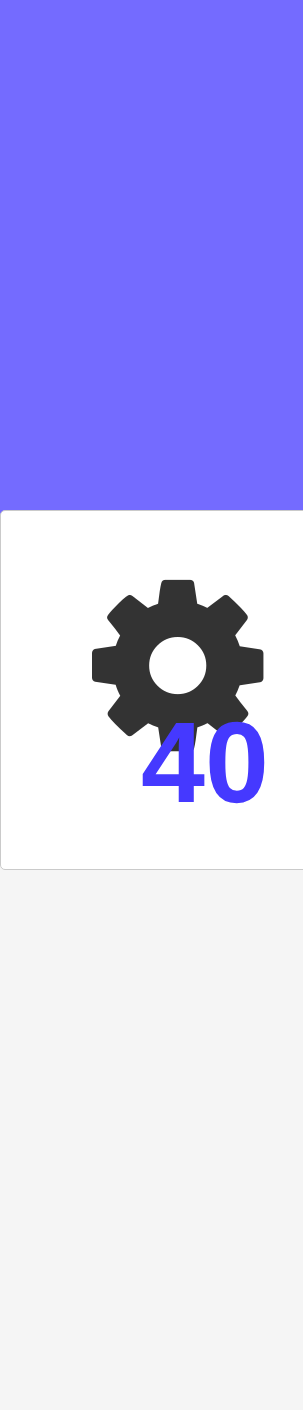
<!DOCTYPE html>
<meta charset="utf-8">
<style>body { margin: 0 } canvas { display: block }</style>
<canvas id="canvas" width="303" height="1410"></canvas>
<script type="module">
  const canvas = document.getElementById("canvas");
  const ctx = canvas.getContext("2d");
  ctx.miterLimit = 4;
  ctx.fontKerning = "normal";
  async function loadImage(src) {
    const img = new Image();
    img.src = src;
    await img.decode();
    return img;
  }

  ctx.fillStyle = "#f5f5f5";
  ctx.fillRect(0, 0, 303, 1410);
  ctx.fillStyle = "#746bff";
  ctx.fillRect(0, 0, 303, 515);
  ctx.fillStyle = "#ffffff";
  ctx.beginPath();
  ctx.roundRect(0.5, 510.5, 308, 359, 4.5);
  ctx.fill();
  ctx.strokeStyle = "#cacaca";
  ctx.stroke();
  ctx.drawImage(await loadImage("img1.png"), 92, 579, 172, 173);
  ctx.font = "bold 115px Liberation Sans";
  ctx.fillStyle = "#4539ff";
  ctx.fillText("40", 141, 802);
</script>
